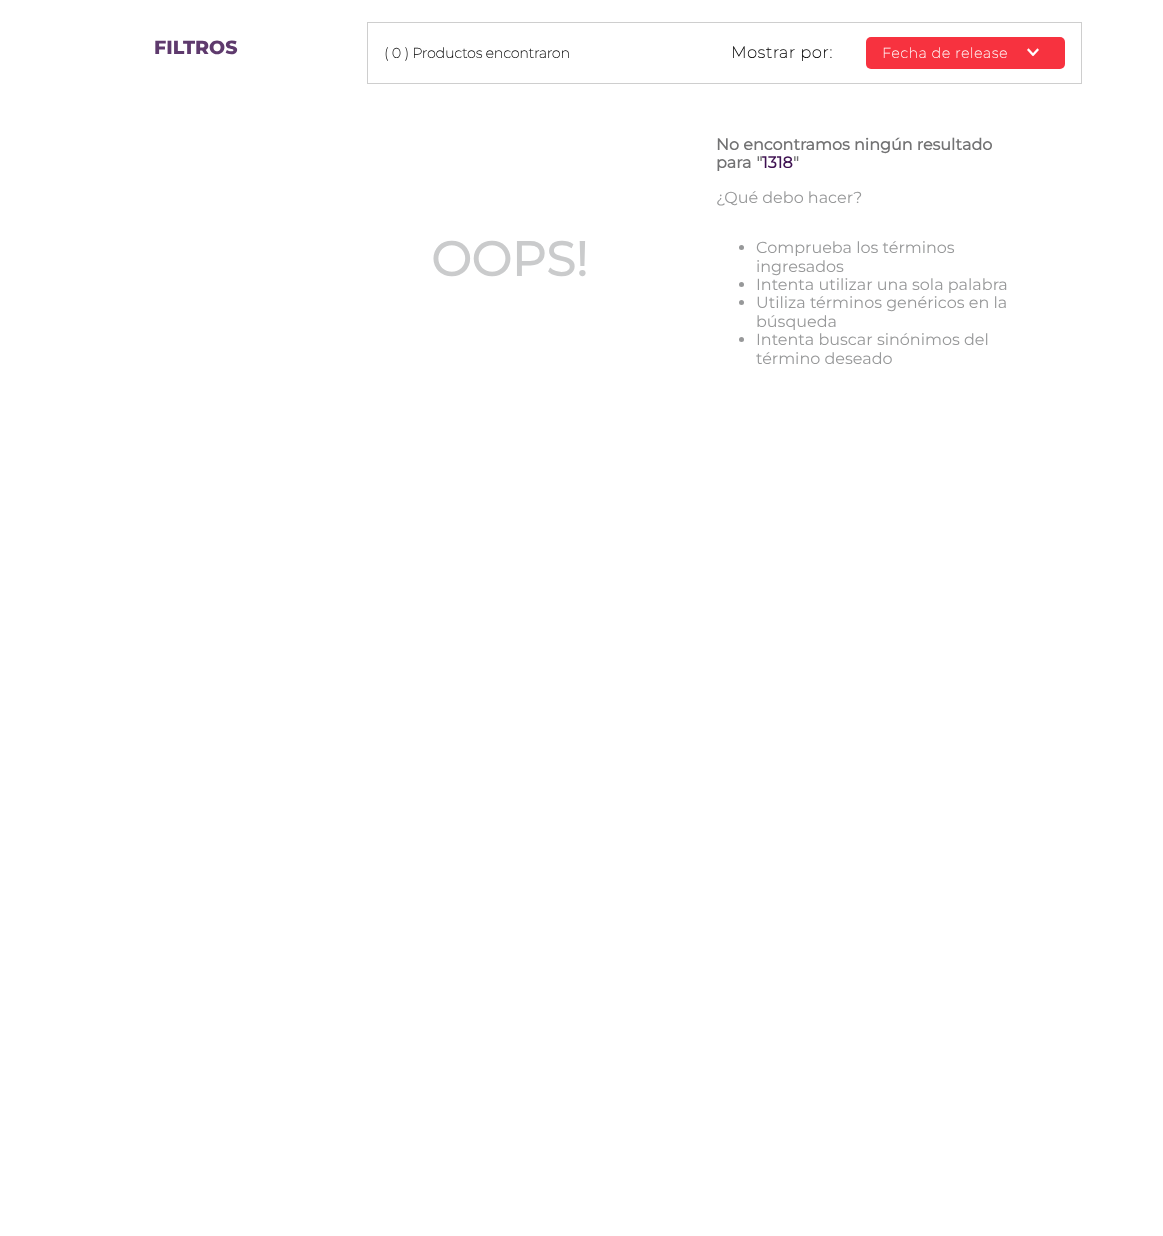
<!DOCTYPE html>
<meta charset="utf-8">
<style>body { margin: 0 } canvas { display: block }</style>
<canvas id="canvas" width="1163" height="1236"></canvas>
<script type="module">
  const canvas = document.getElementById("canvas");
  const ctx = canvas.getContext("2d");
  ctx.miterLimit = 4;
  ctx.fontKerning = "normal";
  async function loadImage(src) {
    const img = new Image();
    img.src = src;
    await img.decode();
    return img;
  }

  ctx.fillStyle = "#ffffff";
  ctx.fillRect(0, 0, 1163, 1236);
  ctx.font = "800 19px Montserrat";
  ctx.fillStyle = "#5e3a6d";
  ctx.fillText("FILTROS", 154, 54);
  ctx.strokeStyle = "#cecece";
  ctx.strokeRect(367.5, 22.5, 714, 61);
  ctx.font = "bold 14px 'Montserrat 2'";
  ctx.fillStyle = "#000000";
  ctx.fillText("( 0 ) Productos encontraron", 384, 58);
  ctx.letterSpacing = "0.75px";
  ctx.font = "bold 16px 'Montserrat 2'";
  ctx.fillText("Mostrar por:", 731, 58);
  ctx.fillStyle = "#f7323f";
  ctx.beginPath();
  ctx.roundRect(866, 37, 199, 32, 5);
  ctx.fill();
  ctx.font = "bold 14px 'Montserrat 2'";
  ctx.fillStyle = "#ffffff";
  ctx.fillText("Fecha de release", 882, 58);
  ctx.drawImage(await loadImage("img1.png"), 1027, 48, 12, 9);
  ctx.letterSpacing = "0px";
  ctx.font = "bold 48px Montserrat";
  ctx.fillStyle = "#cacbcc";
  ctx.fillText("OOPS!", 431, 276);
  ctx.font = "bold 16px Montserrat";
  ctx.fillStyle = "#727273";
  ctx.fillText("No encontramos ningún resultado", 716, 150);
  ctx.wordSpacing = "1px";
  ctx.fillText("para \"", 716, 168);
  ctx.wordSpacing = "0px";
  ctx.fillStyle = "#3e1151";
  ctx.fillText("1318", 762, 168);
  ctx.fillStyle = "#727273";
  ctx.fillText("\"", 793, 168);
  ctx.font = "16px Montserrat";
  ctx.fillStyle = "#979899";
  ctx.fillText("¿Qué debo hacer?", 716, 203);
  ctx.beginPath();
  ctx.arc(741.5, 247.5, 2.5, 0, Math.PI * 2);
  ctx.fill();
  ctx.fillText("Comprueba los términos", 756, 253);
  ctx.fillText("ingresados", 756, 272);
  ctx.beginPath();
  ctx.arc(741.5, 284.5, 2.5, 0, Math.PI * 2);
  ctx.fill();
  ctx.fillText("Intenta utilizar una sola palabra", 756, 290);
  ctx.beginPath();
  ctx.arc(741.5, 302.5, 2.5, 0, Math.PI * 2);
  ctx.fill();
  ctx.fillText("Utiliza términos genéricos en la", 756, 308);
  ctx.fillText("búsqueda", 756, 327);
  ctx.beginPath();
  ctx.arc(741.5, 339.5, 2.5, 0, Math.PI * 2);
  ctx.fill();
  ctx.fillText("Intenta buscar sinónimos del", 756, 345);
  ctx.fillText("término deseado", 756, 364);
</script>
